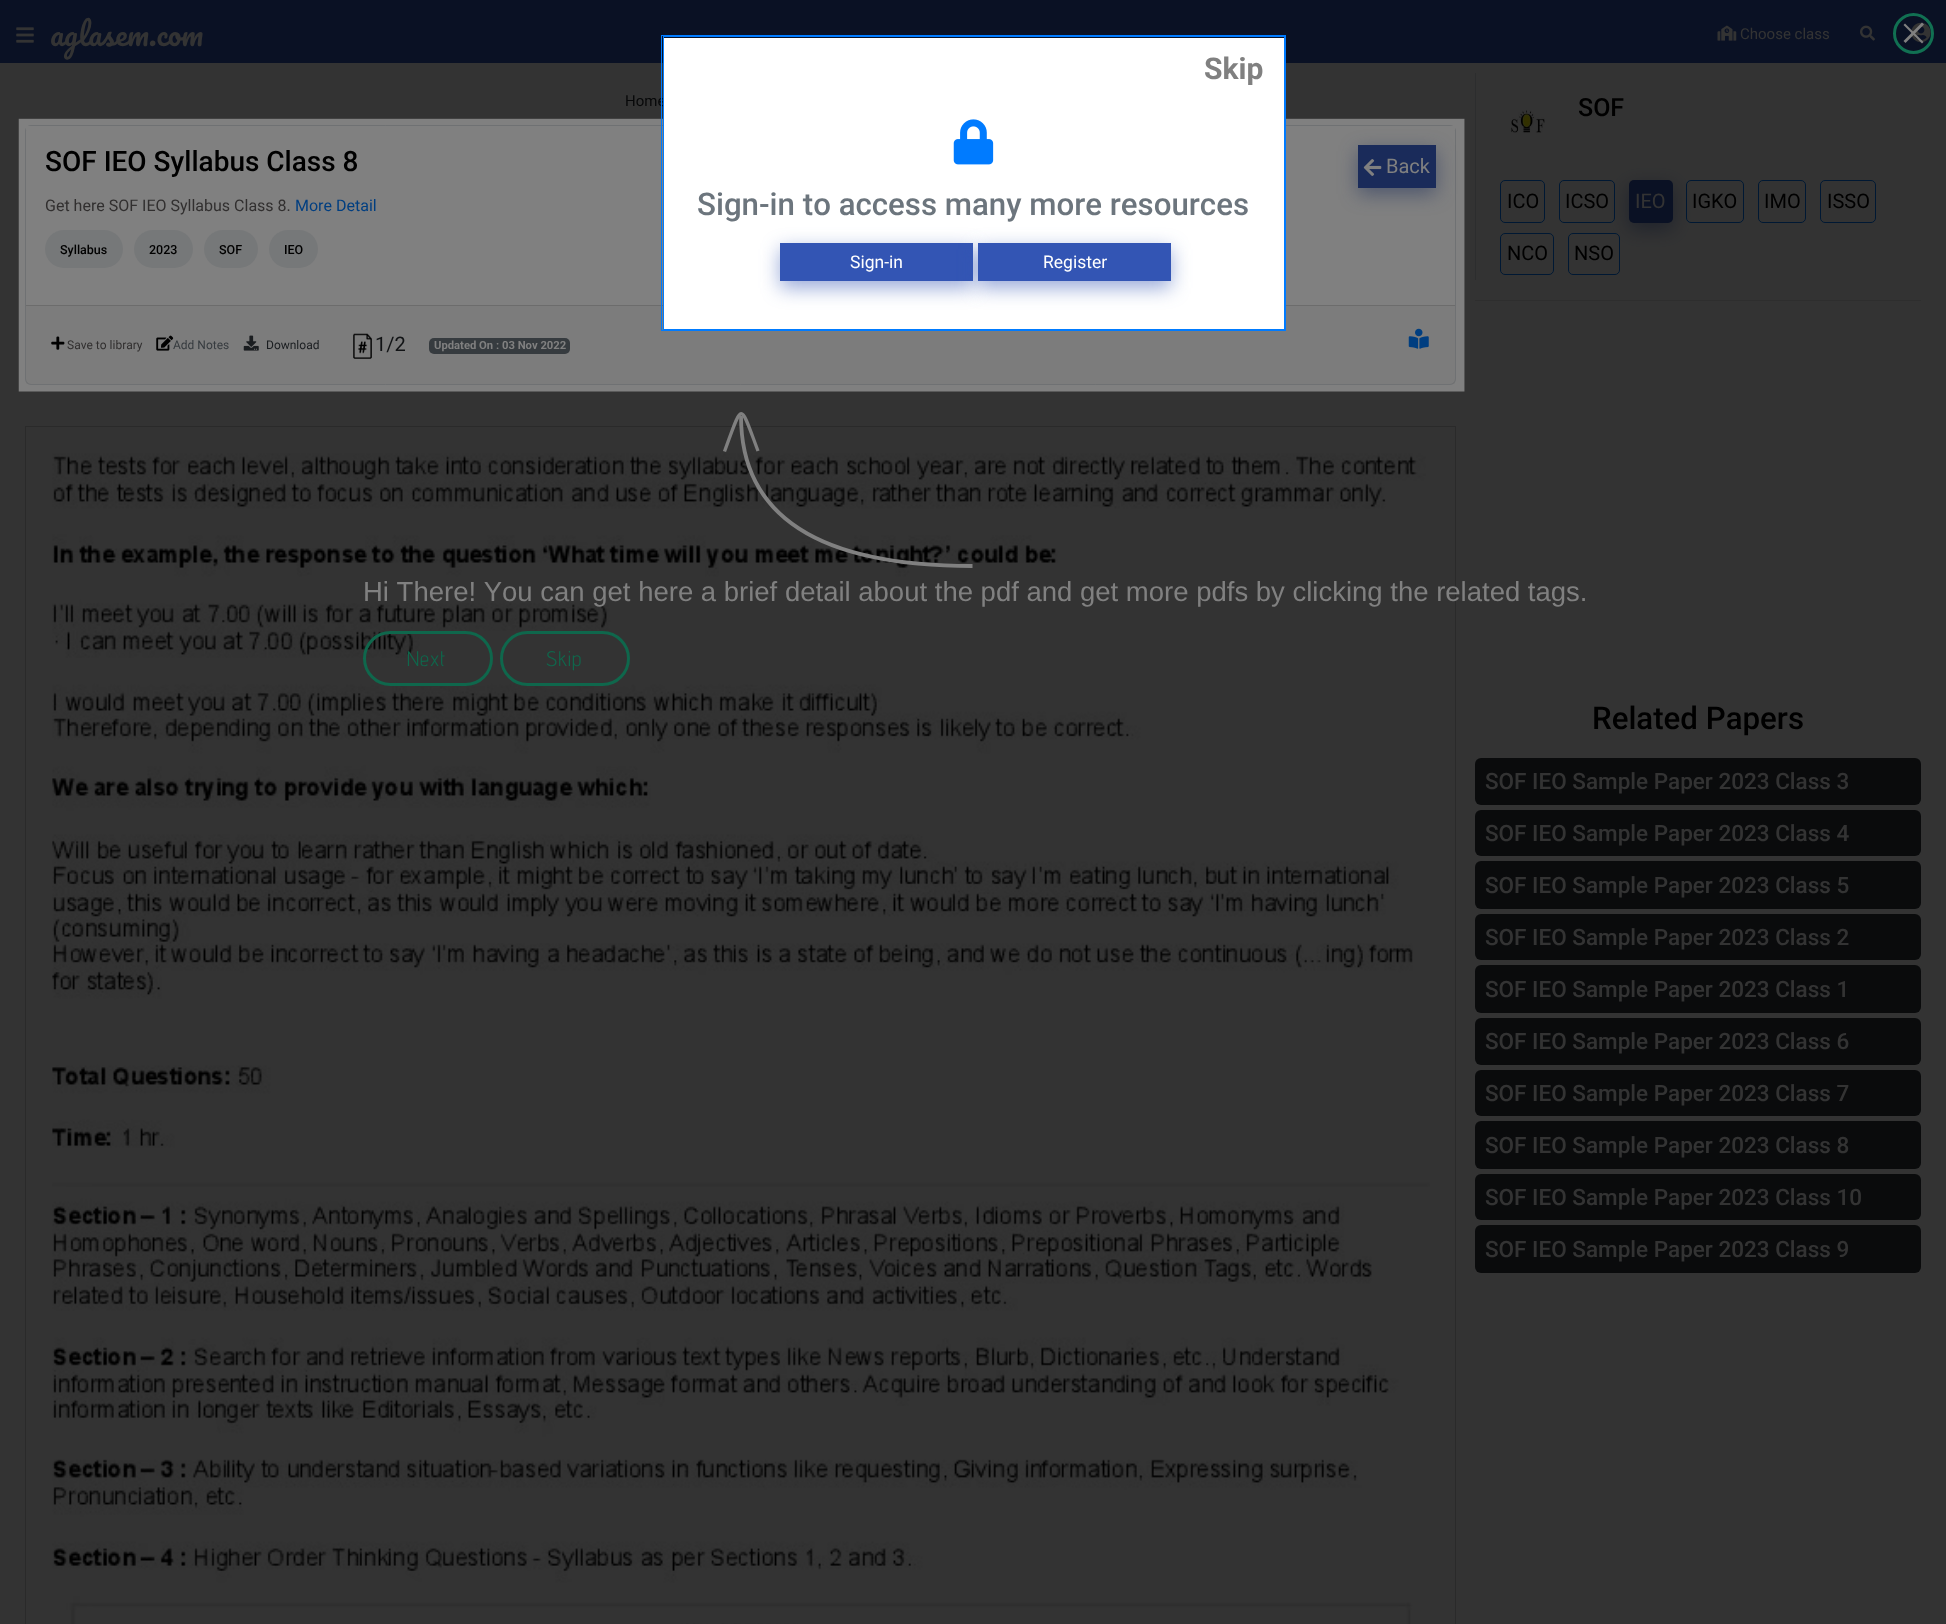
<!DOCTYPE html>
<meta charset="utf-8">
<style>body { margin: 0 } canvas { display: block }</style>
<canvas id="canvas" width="1946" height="1624"></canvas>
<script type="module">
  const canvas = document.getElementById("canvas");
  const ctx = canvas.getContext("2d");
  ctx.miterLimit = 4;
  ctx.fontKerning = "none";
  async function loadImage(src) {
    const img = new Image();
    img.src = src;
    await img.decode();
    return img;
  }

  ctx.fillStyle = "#1a2b5a";
  ctx.fillRect(0, 0, 1946, 1624);
  ctx.fillStyle = "#808080";
  ctx.fillRect(0, 63, 1946, 1561);
  ctx.drawImage(await loadImage("img1.png"), 16, 27, 18, 16);
  ctx.font = "30px Pacifico";
  ctx.fillText("aglasem.com", 50, 46);
  ctx.drawImage(await loadImage("img2.png"), 1717, 25, 20, 16);
  ctx.font = "15px Roboto";
  ctx.fillText("Choose class", 1740, 39);
  ctx.drawImage(await loadImage("img3.png"), 1860, 25, 15, 16);
  ctx.drawImage(await loadImage("img4.png"), 1911, 22, 20, 21);
  ctx.fillStyle = "#111315";
  ctx.fillText("Home", 625, 106);
  ctx.beginPath();
  ctx.roundRect(25.5, 125.5, 1430, 259, 5.5);
  ctx.strokeStyle = "#6f7173";
  ctx.stroke();
  ctx.fillStyle = "#808080";
  ctx.fillRect(26, 126, 1429, 4);
  ctx.fillStyle = "rgba(0, 0, 0, 0.03)";
  ctx.fillRect(26, 306, 1429, 78);
  ctx.fillStyle = "#6c6c6c";
  ctx.fillRect(26, 305, 1429, 1);
  ctx.font = "500 28px Roboto";
  ctx.fillStyle = "#000000";
  ctx.fillText("SOF IEO Syllabus Class 8", 45, 171);
  ctx.fillStyle = "rgba(26, 43, 90, 0.5)";
  ctx.filter = "blur(9.5px)";
  ctx.beginPath();
  ctx.rect(1358, 151, 78, 43);
  ctx.fill();
  ctx.filter = "none";
  ctx.fillStyle = "#1a2b5a";
  ctx.fillRect(1358, 145, 78, 43);
  ctx.drawImage(await loadImage("img6.png"), 1363, 159, 19, 17);
  ctx.font = "20px Roboto";
  ctx.fillStyle = "#808080";
  ctx.fillText("Back", 1386, 173);
  ctx.font = "16px Roboto";
  ctx.fillStyle = "#312f2f";
  ctx.fillText("Get here SOF IEO Syllabus Class 8.", 45, 211);
  ctx.fillStyle = "#003e80";
  ctx.fillText("More Detail", 295, 211);
  ctx.fillStyle = "#767879";
  ctx.beginPath();
  ctx.roundRect(45, 230, 78, 38, 19);
  ctx.fill();
  ctx.font = "500 12.5px Roboto";
  ctx.fillStyle = "#000000";
  ctx.fillText("Syllabus", 60, 254);
  ctx.fillStyle = "#767879";
  ctx.beginPath();
  ctx.roundRect(134, 230, 59, 38, 19);
  ctx.fill();
  ctx.fillStyle = "#000000";
  ctx.fillText("2023", 149, 254);
  ctx.fillStyle = "#767879";
  ctx.beginPath();
  ctx.roundRect(204, 230, 54, 38, 19);
  ctx.fill();
  ctx.fillStyle = "#000000";
  ctx.fillText("SOF", 219, 254);
  ctx.fillStyle = "#767879";
  ctx.beginPath();
  ctx.roundRect(269, 230, 49, 38, 19);
  ctx.fill();
  ctx.fillStyle = "#000000";
  ctx.fillText("IEO", 284, 254);
  ctx.drawImage(await loadImage("img7.png"), 51, 336, 14, 14);
  ctx.font = "12px Roboto";
  ctx.fillStyle = "#312f2f";
  ctx.fillText("Save to library", 67, 349);
  ctx.drawImage(await loadImage("img8.png"), 156, 335, 18, 16);
  ctx.fillStyle = "#363b3f";
  ctx.fillText("Add Notes", 173, 349);
  ctx.drawImage(await loadImage("img9.png"), 243, 335, 16, 16);
  ctx.fillStyle = "#1a1d20";
  ctx.fillText("Download", 266, 349);
  ctx.drawImage(await loadImage("img10.png"), 353, 333, 19, 26);
  ctx.font = "20px Roboto";
  ctx.fillStyle = "#111315";
  ctx.fillText("1/2", 375, 351);
  ctx.fillStyle = "#363b3f";
  ctx.beginPath();
  ctx.roundRect(429, 338, 141, 16, 5);
  ctx.fill();
  ctx.font = "bold 11.25px Roboto";
  ctx.fillStyle = "#808080";
  ctx.fillText("Updated On : 03 Nov 2022", 434, 349);
  ctx.drawImage(await loadImage("img11.png"), 1408, 328, 21, 21);
  ctx.strokeStyle = "#6a6a6a";
  ctx.strokeRect(25.5, 426.5, 1430, 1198);
  ctx.drawImage(await loadImage("img12.png"), 52, 453, 1378, 1171);
  ctx.fillStyle = "#6f7173";
  ctx.fillRect(1475, 73, 1, 207);
  ctx.font = "500 25px Roboto";
  ctx.fillStyle = "#000000";
  ctx.fillText("SOF", 1578, 116);
  ctx.drawImage(await loadImage("img13.png"), 1510, 110, 35, 23);
  ctx.beginPath();
  ctx.roundRect(1500.5, 180.5, 44, 42, 4.5);
  ctx.strokeStyle = "#003e80";
  ctx.stroke();
  ctx.font = "20px Roboto";
  ctx.fillText("ICO", 1507, 208);
  ctx.beginPath();
  ctx.roundRect(1559.5, 180.5, 55, 42, 4.5);
  ctx.stroke();
  ctx.fillText("ICSO", 1565, 208);
  ctx.fillStyle = "rgba(26, 43, 90, 0.5)";
  ctx.filter = "blur(9.5px)";
  ctx.beginPath();
  ctx.roundRect(1629, 186, 44, 43, 5);
  ctx.fill();
  ctx.filter = "none";
  ctx.fillStyle = "#1a2b5a";
  ctx.beginPath();
  ctx.roundRect(1629, 180, 44, 43, 5);
  ctx.fill();
  ctx.fillStyle = "#808080";
  ctx.fillText("IEO", 1635, 208);
  ctx.beginPath();
  ctx.roundRect(1686.5, 180.5, 57, 42, 4.5);
  ctx.stroke();
  ctx.fillStyle = "#000000";
  ctx.fillText("IGKO", 1692, 208);
  ctx.beginPath();
  ctx.roundRect(1758.5, 180.5, 47, 42, 4.5);
  ctx.stroke();
  ctx.fillText("IMO", 1764, 208);
  ctx.beginPath();
  ctx.roundRect(1820.5, 180.5, 55, 42, 4.5);
  ctx.stroke();
  ctx.fillText("ISSO", 1827, 208);
  ctx.beginPath();
  ctx.roundRect(1500.5, 233.5, 53, 41, 4.5);
  ctx.stroke();
  ctx.fillText("NCO", 1507, 260);
  ctx.beginPath();
  ctx.roundRect(1568.5, 233.5, 51, 41, 4.5);
  ctx.stroke();
  ctx.fillText("NSO", 1574, 260);
  ctx.fillStyle = "#737373";
  ctx.fillRect(1475, 300, 446, 1);
  ctx.font = "500 31.25px Roboto";
  ctx.fillStyle = "#000000";
  ctx.fillText("Related Papers", 1592, 729);
  ctx.fillStyle = "#1a1d20";
  ctx.beginPath();
  ctx.roundRect(1475, 758, 446, 47, 6);
  ctx.fill();
  ctx.font = "500 22.5px Roboto";
  ctx.fillStyle = "#808080";
  ctx.fillText("SOF IEO Sample Paper 2023 Class 3", 1485, 789);
  ctx.fillStyle = "#1a1d20";
  ctx.beginPath();
  ctx.roundRect(1475, 810, 446, 46, 6);
  ctx.fill();
  ctx.fillStyle = "#808080";
  ctx.fillText("SOF IEO Sample Paper 2023 Class 4", 1485, 841);
  ctx.fillStyle = "#1a1d20";
  ctx.beginPath();
  ctx.roundRect(1475, 861, 446, 48, 6);
  ctx.fill();
  ctx.fillStyle = "#808080";
  ctx.fillText("SOF IEO Sample Paper 2023 Class 5", 1485, 893);
  ctx.fillStyle = "#1a1d20";
  ctx.beginPath();
  ctx.roundRect(1475, 914, 446, 46, 6);
  ctx.fill();
  ctx.fillStyle = "#808080";
  ctx.fillText("SOF IEO Sample Paper 2023 Class 2", 1485, 945);
  ctx.fillStyle = "#1a1d20";
  ctx.beginPath();
  ctx.roundRect(1475, 965, 446, 48, 6);
  ctx.fill();
  ctx.fillStyle = "#808080";
  ctx.fillText("SOF IEO Sample Paper 2023 Class 1", 1485, 997);
  ctx.fillStyle = "#1a1d20";
  ctx.beginPath();
  ctx.roundRect(1475, 1018, 446, 47, 6);
  ctx.fill();
  ctx.fillStyle = "#808080";
  ctx.fillText("SOF IEO Sample Paper 2023 Class 6", 1485, 1049);
  ctx.fillStyle = "#1a1d20";
  ctx.beginPath();
  ctx.roundRect(1475, 1070, 446, 46, 6);
  ctx.fill();
  ctx.fillStyle = "#808080";
  ctx.fillText("SOF IEO Sample Paper 2023 Class 7", 1485, 1101);
  ctx.fillStyle = "#1a1d20";
  ctx.beginPath();
  ctx.roundRect(1475, 1121, 446, 48, 6);
  ctx.fill();
  ctx.fillStyle = "#808080";
  ctx.fillText("SOF IEO Sample Paper 2023 Class 8", 1485, 1153);
  ctx.fillStyle = "#1a1d20";
  ctx.beginPath();
  ctx.roundRect(1475, 1174, 446, 46, 6);
  ctx.fill();
  ctx.fillStyle = "#808080";
  ctx.fillText("SOF IEO Sample Paper 2023 Class 10", 1485, 1205);
  ctx.fillStyle = "#1a1d20";
  ctx.beginPath();
  ctx.roundRect(1475, 1225, 446, 48, 6);
  ctx.fill();
  ctx.fillStyle = "#808080";
  ctx.fillText("SOF IEO Sample Paper 2023 Class 9", 1485, 1257);
  ctx.drawImage(await loadImage("img14.png"), 0, 0, 1946, 1624);
  ctx.strokeStyle = "#007bff";
  ctx.strokeRect(661.5, 35.5, 624, 295);
  ctx.fillStyle = "#ffffff";
  ctx.fillRect(664, 38, 620, 291);
  ctx.strokeRect(663.5, 36.5, 621, 293);
  ctx.font = "bold 30px Roboto";
  ctx.fillStyle = "#808080";
  ctx.fillText("Skip", 1204, 79);
  ctx.drawImage(await loadImage("img5.png"), 953, 119, 41, 46);
  ctx.font = "500 31.25px Roboto";
  ctx.fillStyle = "#6c757d";
  ctx.fillText("Sign-in to access many more resources", 697, 215);
  ctx.fillStyle = "rgba(51, 85, 180, 0.5)";
  ctx.filter = "blur(9.5px)";
  ctx.beginPath();
  ctx.rect(780, 249, 193, 39);
  ctx.fill();
  ctx.filter = "none";
  ctx.fillStyle = "#3355b4";
  ctx.fillRect(780, 243, 193, 38);
  ctx.font = "17.5px Roboto";
  ctx.fillStyle = "#ffffff";
  ctx.fillText("Sign-in", 850, 268);
  ctx.fillStyle = "rgba(51, 85, 180, 0.5)";
  ctx.filter = "blur(9.5px)";
  ctx.beginPath();
  ctx.rect(978, 249, 193, 39);
  ctx.fill();
  ctx.filter = "none";
  ctx.fillStyle = "#3355b4";
  ctx.fillRect(978, 243, 193, 38);
  ctx.fillStyle = "#ffffff";
  ctx.fillText("Register", 1043, 268);
  ctx.beginPath();
  ctx.arc(1913.5, 33.5, 19, 0, Math.PI * 2);
  ctx.strokeStyle = "#117052";
  ctx.lineWidth = 3;
  ctx.stroke();
  ctx.fillStyle = "#808080";
  ctx.beginPath();
  ctx.moveTo(1905, 23.5);
  ctx.lineTo(1923.5, 42);
  ctx.lineTo(1922, 43.5);
  ctx.lineTo(1903.5, 25);
  ctx.closePath();
  ctx.fill();
  ctx.beginPath();
  ctx.moveTo(1903.5, 41);
  ctx.lineTo(1922, 22.5);
  ctx.lineTo(1924, 24.5);
  ctx.lineTo(1905.5, 43);
  ctx.closePath();
  ctx.fill();
  ctx.beginPath();
  ctx.moveTo(972.5, 566);
  ctx.bezierCurveTo(818.5, 566, 741, 516, 741, 416);
  ctx.strokeStyle = "#808080";
  ctx.lineWidth = 3.8;
  ctx.stroke();
  ctx.beginPath();
  ctx.moveTo(724.5, 451.5);
  ctx.bezierCurveTo(743, 401, 739.5, 401.5, 758, 451);
  ctx.lineWidth = 3.3;
  ctx.stroke();
  ctx.font = "27.5px Liberation Sans";
  ctx.fillText("Hi There! You can get here a brief detail about the pdf and get more pdfs by clicking the related tags.", 363, 601);
  ctx.beginPath();
  ctx.roundRect(364.5, 632.5, 127, 52, 26);
  ctx.strokeStyle = "#0f674c";
  ctx.lineWidth = 3;
  ctx.stroke();
  ctx.letterSpacing = "1px";
  ctx.font = "21px Advent Pro";
  ctx.fillStyle = "#0f674c";
  ctx.fillText("Next", 407, 666);
  ctx.beginPath();
  ctx.roundRect(501.5, 632.5, 127, 52, 26);
  ctx.stroke();
  ctx.fillText("Skip", 546, 666);
</script>
